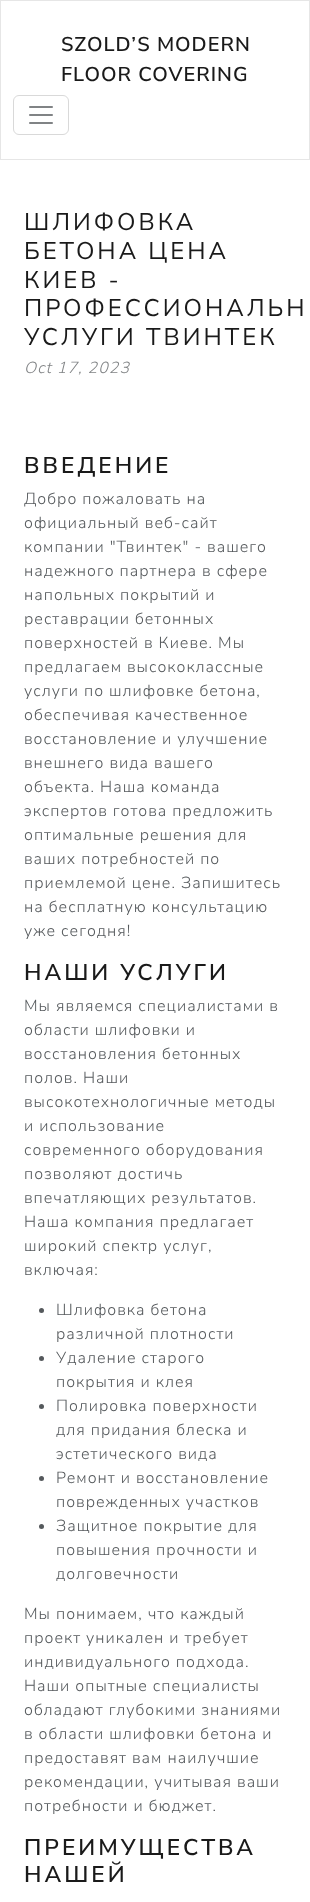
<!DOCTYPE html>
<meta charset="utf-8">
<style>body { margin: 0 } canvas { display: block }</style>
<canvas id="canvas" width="310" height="1902"></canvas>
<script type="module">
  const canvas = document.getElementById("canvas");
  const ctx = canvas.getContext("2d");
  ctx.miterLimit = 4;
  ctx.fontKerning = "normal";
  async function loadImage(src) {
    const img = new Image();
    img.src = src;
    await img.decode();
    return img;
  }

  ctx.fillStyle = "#ffffff";
  ctx.fillRect(0, 0, 310, 1902);
  ctx.strokeStyle = "#e6e6e6";
  ctx.strokeRect(0.5, 0.5, 309, 159);
  ctx.letterSpacing = "1px";
  ctx.font = "600 20px Nunito Sans";
  ctx.fillStyle = "#1a1a1a";
  ctx.fillText("SZOLD’S MODERN", 61, 51);
  ctx.fillText("FLOOR COVERING", 61, 81);
  ctx.beginPath();
  ctx.roundRect(13.5, 95.5, 55, 39, 5.5);
  ctx.strokeStyle = "#d9d9d9";
  ctx.stroke();
  ctx.drawImage(await loadImage("img1.png"), 29, 106, 24, 18);
  ctx.letterSpacing = "3px";
  ctx.font = "24px Nunito Sans";
  ctx.fillText("ШЛИФОВКА", 24, 230);
  ctx.fillText("БЕТОНА ЦЕНА", 24, 259);
  ctx.fillText("КИЕВ -", 24, 288);
  ctx.fillText("ПРОФЕССИОНАЛЬН", 24, 316);
  ctx.fillText("УСЛУГИ ТВИНТЕК", 24, 345);
  ctx.letterSpacing = "1px";
  ctx.font = "italic 300 16px Nunito Sans";
  ctx.fillStyle = "#808385";
  ctx.fillText("Oct 17, 2023", 24, 373);
  ctx.letterSpacing = "3px";
  ctx.font = "600 22.75px Nunito Sans";
  ctx.fillStyle = "#1a1a1a";
  ctx.fillText("ВВЕДЕНИЕ", 24, 473);
  ctx.letterSpacing = "1px";
  ctx.font = "300 16px Nunito Sans";
  ctx.fillStyle = "#55595c";
  ctx.fillText("Добро пожаловать на", 24, 504);
  ctx.fillText("официальный веб-сайт", 24, 528);
  ctx.fillText("компании \"Твинтек\" - вашего", 24, 552);
  ctx.fillText("надежного партнера в сфере", 24, 576);
  ctx.fillText("напольных покрытий и", 24, 600);
  ctx.fillText("реставрации бетонных", 24, 624);
  ctx.fillText("поверхностей в Киеве. Мы", 24, 648);
  ctx.fillText("предлагаем высококлассные", 24, 672);
  ctx.fillText("услуги по шлифовке бетона,", 24, 696);
  ctx.fillText("обеспечивая качественное", 24, 720);
  ctx.fillText("восстановление и улучшение", 24, 744);
  ctx.fillText("внешнего вида вашего", 24, 768);
  ctx.fillText("объекта. Наша команда", 24, 792);
  ctx.fillText("экспертов готова предложить", 24, 816);
  ctx.fillText("оптимальные решения для", 24, 840);
  ctx.fillText("ваших потребностей по", 24, 864);
  ctx.fillText("приемлемой цене. Запишитесь", 24, 888);
  ctx.fillText("на бесплатную консультацию", 24, 912);
  ctx.fillText("уже сегодня!", 24, 936);
  ctx.letterSpacing = "3px";
  ctx.font = "600 22.75px Nunito Sans";
  ctx.fillStyle = "#1a1a1a";
  ctx.fillText("НАШИ УСЛУГИ", 24, 980);
  ctx.letterSpacing = "1px";
  ctx.font = "300 16px Nunito Sans";
  ctx.fillStyle = "#55595c";
  ctx.fillText("Мы являемся специалистами в", 24, 1011);
  ctx.fillText("области шлифовки и", 24, 1035);
  ctx.fillText("восстановления бетонных", 24, 1059);
  ctx.fillText("полов. Наши", 24, 1083);
  ctx.fillText("высокотехнологичные методы", 24, 1107);
  ctx.fillText("и использование", 24, 1131);
  ctx.fillText("современного оборудования", 24, 1155);
  ctx.fillText("позволяют достичь", 24, 1179);
  ctx.fillText("впечатляющих результатов.", 24, 1203);
  ctx.fillText("Наша компания предлагает", 24, 1227);
  ctx.fillText("широкий спектр услуг,", 24, 1251);
  ctx.fillText("включая:", 24, 1275);
  ctx.beginPath();
  ctx.arc(41.5, 1310.5, 2.5, 0, Math.PI * 2);
  ctx.fill();
  ctx.fillText("Шлифовка бетона", 56, 1315);
  ctx.fillText("различной плотности", 56, 1339);
  ctx.beginPath();
  ctx.arc(41.5, 1358.5, 2.5, 0, Math.PI * 2);
  ctx.fill();
  ctx.fillText("Удаление старого", 56, 1363);
  ctx.fillText("покрытия и клея", 56, 1387);
  ctx.beginPath();
  ctx.arc(41.5, 1406.5, 2.5, 0, Math.PI * 2);
  ctx.fill();
  ctx.fillText("Полировка поверхности", 56, 1411);
  ctx.fillText("для придания блеска и", 56, 1435);
  ctx.fillText("эстетического вида", 56, 1459);
  ctx.beginPath();
  ctx.arc(41.5, 1478.5, 2.5, 0, Math.PI * 2);
  ctx.fill();
  ctx.fillText("Ремонт и восстановление", 56, 1483);
  ctx.fillText("поврежденных участков", 56, 1507);
  ctx.beginPath();
  ctx.arc(41.5, 1526.5, 2.5, 0, Math.PI * 2);
  ctx.fill();
  ctx.fillText("Защитное покрытие для", 56, 1531);
  ctx.fillText("повышения прочности и", 56, 1555);
  ctx.fillText("долговечности", 56, 1579);
  ctx.fillText("Мы понимаем, что каждый", 24, 1619);
  ctx.fillText("проект уникален и требует", 24, 1643);
  ctx.fillText("индивидуального подхода.", 24, 1667);
  ctx.fillText("Наши опытные специалисты", 24, 1691);
  ctx.fillText("обладают глубокими знаниями", 24, 1715);
  ctx.fillText("в области шлифовки бетона и", 24, 1739);
  ctx.fillText("предоставят вам наилучшие", 24, 1763);
  ctx.fillText("рекомендации, учитывая ваши", 24, 1787);
  ctx.fillText("потребности и бюджет.", 24, 1811);
  ctx.letterSpacing = "3px";
  ctx.font = "600 22.75px Nunito Sans";
  ctx.fillStyle = "#1a1a1a";
  ctx.fillText("ПРЕИМУЩЕСТВА", 24, 1855);
  ctx.fillText("НАШЕЙ", 24, 1882);
</script>
